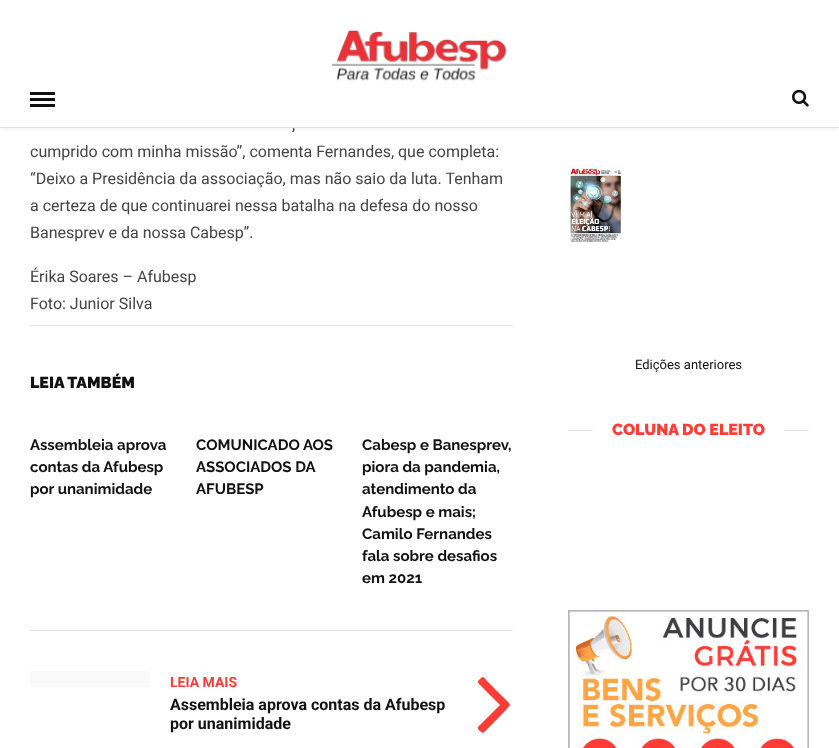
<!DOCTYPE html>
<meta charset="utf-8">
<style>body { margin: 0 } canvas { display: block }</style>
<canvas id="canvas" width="839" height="748"></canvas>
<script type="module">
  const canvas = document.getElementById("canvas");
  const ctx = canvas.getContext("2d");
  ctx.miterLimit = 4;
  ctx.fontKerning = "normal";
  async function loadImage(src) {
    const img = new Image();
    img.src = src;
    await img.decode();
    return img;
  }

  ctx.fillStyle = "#ffffff";
  ctx.fillRect(0, 0, 839, 748);
  ctx.fillStyle = "rgba(190, 190, 190, 0.2)";
  ctx.filter = "blur(2.5px)";
  ctx.beginPath();
  ctx.rect(0, 1, 839, 128);
  ctx.fill();
  ctx.filter = "none";
  ctx.fillStyle = "#ffffff";
  ctx.fillRect(0, 0, 839, 127);
  ctx.fillStyle = "#e1e1e1";
  ctx.fillRect(0, 127, 839, 1);
  ctx.drawImage(await loadImage("img1.png"), 332, 30, 175, 51);
  ctx.fillStyle = "#111111";
  ctx.fillRect(30, 92, 25, 3);
  ctx.fillRect(30, 98, 25, 3);
  ctx.fillRect(30, 104, 25, 3);
  ctx.drawImage(await loadImage("img2.png"), 792, 89, 17, 18);
  ctx.font = "16px Roboto";
  ctx.fillStyle = "#444444";
  ctx.fillText(",", 292, 130);
  ctx.fillText("cumprido com minha missão”, comenta Fernandes, que completa:", 30, 157);
  ctx.fillText("“Deixo a Presidência da associação, mas não saio da luta. Tenham", 30, 184);
  ctx.fillText("a certeza de que continuarei nessa batalha na defesa do nosso", 30, 211);
  ctx.fillText("Banesprev e da nossa Cabesp”.", 30, 238);
  ctx.fillText("Érika Soares – Afubesp", 30, 282);
  ctx.fillText("Foto: Junior Silva", 30, 309);
  ctx.fillStyle = "#ebebeb";
  ctx.fillRect(30, 325, 483, 1);
  ctx.font = "900 16px Raleway";
  ctx.fillStyle = "#111111";
  ctx.fillText("LEIA TAMBÉM", 30, 388);
  ctx.font = "bold 15px Raleway";
  ctx.fillText("Assembleia aprova", 30, 450);
  ctx.fillText("contas da Afubesp", 30, 472);
  ctx.fillText("por unanimidade", 30, 494);
  ctx.fillText("COMUNICADO AOS", 196, 450);
  ctx.fillText("ASSOCIADOS DA", 196, 472);
  ctx.fillText("AFUBESP", 196, 494);
  ctx.fillText("Cabesp e Banesprev,", 362, 450);
  ctx.fillText("piora da pandemia,", 362, 472);
  ctx.fillText("atendimento da", 362, 494);
  ctx.fillText("Afubesp e mais;", 362, 517);
  ctx.fillText("Camilo Fernandes", 362, 539);
  ctx.fillText("fala sobre desafios", 362, 561);
  ctx.fillText("em 2021", 362, 583);
  ctx.fillStyle = "#e1e1e1";
  ctx.fillRect(30, 630, 483, 1);
  ctx.fillStyle = "#f9f9f9";
  ctx.fillRect(30, 671, 120, 16);
  ctx.font = "bold 14px Roboto";
  ctx.fillStyle = "#ff3c36";
  ctx.fillText("LEIA MAIS", 170, 687);
  ctx.font = "bold 16px Roboto";
  ctx.fillStyle = "#111111";
  ctx.fillText("Assembleia aprova contas da Afubesp", 170, 710);
  ctx.fillText("por unanimidade", 170, 729);
  ctx.fillStyle = "#ff3c36";
  ctx.beginPath();
  ctx.moveTo(510, 705);
  ctx.bezierCurveTo(510, 703, 502, 696, 501, 695);
  ctx.lineTo(488, 682);
  ctx.bezierCurveTo(484, 678, 484, 675, 480, 679);
  ctx.lineTo(478, 681);
  ctx.bezierCurveTo(477, 683, 482, 686, 482, 687);
  ctx.lineTo(500, 705);
  ctx.lineTo(478, 727);
  ctx.bezierCurveTo(477, 729, 480, 731, 481, 732);
  ctx.lineTo(483, 733);
  ctx.bezierCurveTo(485, 732, 510, 706, 510, 705);
  ctx.closePath();
  ctx.fill();
  ctx.drawImage(await loadImage("img3.png"), 568, 166, 55, 76);
  ctx.font = "13px Roboto";
  ctx.fillStyle = "#111111";
  ctx.fillText("Edições anteriores", 635, 369);
  ctx.fillStyle = "#e1e1e1";
  ctx.fillRect(568, 430, 241, 1);
  ctx.fillStyle = "#ffffff";
  ctx.fillRect(593, 430, 191, 1);
  ctx.font = "900 16px Raleway";
  ctx.fillStyle = "#ff3c36";
  ctx.fillText("COLUNA DO ELEITO", 612, 435);
  ctx.drawImage(await loadImage("img4.png"), 568, 610, 241, 138);
</script>
